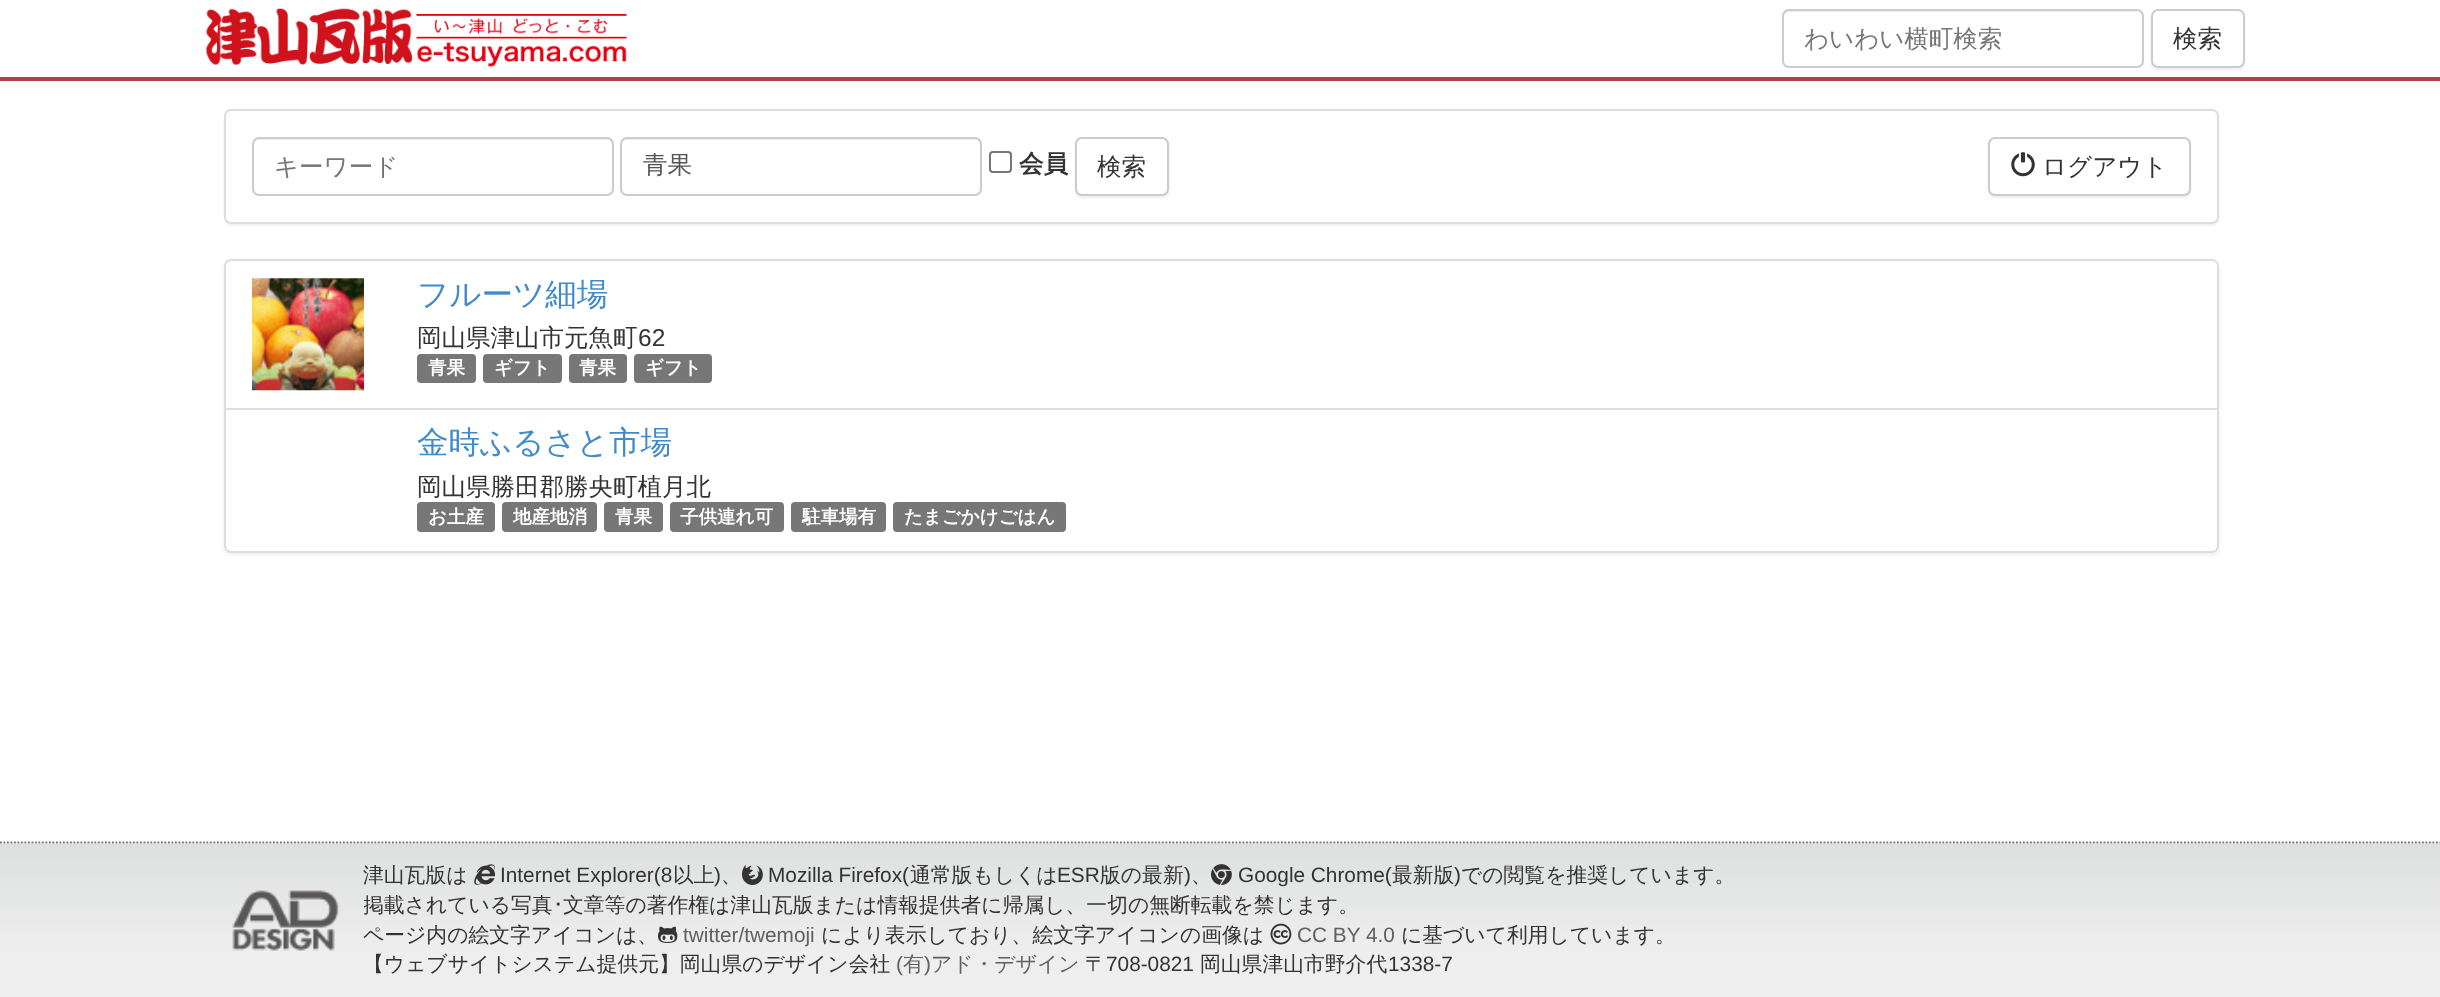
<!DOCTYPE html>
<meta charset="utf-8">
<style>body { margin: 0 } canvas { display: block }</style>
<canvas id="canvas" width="2440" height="997"></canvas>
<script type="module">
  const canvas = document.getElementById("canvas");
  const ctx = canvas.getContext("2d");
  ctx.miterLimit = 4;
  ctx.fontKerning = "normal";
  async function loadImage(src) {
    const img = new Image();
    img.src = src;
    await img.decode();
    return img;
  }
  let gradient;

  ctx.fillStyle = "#ffffff";
  ctx.fillRect(0, 0, 2440, 997);
  ctx.fillStyle = "#b5404b";
  ctx.fillRect(0, 77, 2440, 4);
  ctx.drawImage(await loadImage("img1.png"), 206, 8, 421, 59);
  ctx.fillStyle = "#ececec";
  ctx.beginPath();
  ctx.moveTo(1788, 12);
  ctx.lineTo(2137, 12);
  ctx.bezierCurveTo(2140, 12, 2142, 15, 2142, 18);
  ctx.bezierCurveTo(2142, 15, 2141, 11, 2137, 11);
  ctx.lineTo(1788, 11);
  ctx.bezierCurveTo(1784, 11, 1783, 15, 1783, 18);
  ctx.bezierCurveTo(1783, 15, 1786, 12, 1788, 12);
  ctx.closePath();
  ctx.fill();
  ctx.beginPath();
  ctx.roundRect(1783, 10, 360, 57, 6);
  ctx.strokeStyle = "#cccccc";
  ctx.lineWidth = 2;
  ctx.stroke();
  ctx.font = "500 24.5px WenQuanYi Zen Hei";
  ctx.fillStyle = "#777777";
  ctx.fillText("わいわい横町検索", 1804, 47);
  ctx.save();
  ctx.beginPath();
  ctx.moveTo(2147, 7);
  ctx.lineTo(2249, 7);
  ctx.lineTo(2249, 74);
  ctx.lineTo(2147, 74);
  ctx.closePath();
  ctx.moveTo(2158, 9);
  ctx.lineTo(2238, 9);
  ctx.bezierCurveTo(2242, 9, 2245, 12, 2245, 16);
  ctx.lineTo(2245, 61);
  ctx.bezierCurveTo(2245, 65, 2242, 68, 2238, 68);
  ctx.lineTo(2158, 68);
  ctx.bezierCurveTo(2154, 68, 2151, 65, 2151, 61);
  ctx.lineTo(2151, 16);
  ctx.bezierCurveTo(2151, 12, 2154, 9, 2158, 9);
  ctx.closePath();
  ctx.clip("evenodd");
  ctx.fillStyle = "rgba(0, 0, 0, 0.07)";
  ctx.filter = "blur(1px)";
  ctx.beginPath();
  ctx.roundRect(2151, 11, 94, 59, 7);
  ctx.fill();
  ctx.filter = "none";
  ctx.restore();
  ctx.beginPath();
  ctx.roundRect(2152, 10, 92, 57, 6);
  ctx.stroke();
  ctx.fillStyle = "#333333";
  ctx.fillText("検索", 2173, 47);
  ctx.fillStyle = "rgba(0, 0, 0, 0.05)";
  ctx.filter = "blur(1px)";
  ctx.beginPath();
  ctx.roundRect(224, 110, 1995, 116, 7);
  ctx.fill();
  ctx.filter = "none";
  ctx.fillStyle = "#ffffff";
  ctx.beginPath();
  ctx.roundRect(225, 110, 1993, 113, 6);
  ctx.fill();
  ctx.strokeStyle = "#dddddd";
  ctx.stroke();
  ctx.fillStyle = "#ececec";
  ctx.beginPath();
  ctx.moveTo(259, 140);
  ctx.lineTo(607, 140);
  ctx.bezierCurveTo(610, 140, 612, 142, 612, 145);
  ctx.lineTo(612, 192);
  ctx.bezierCurveTo(613, 191, 613, 190, 613, 189);
  ctx.lineTo(613, 143);
  ctx.bezierCurveTo(613, 140, 611, 138, 608, 138);
  ctx.lineTo(259, 138);
  ctx.bezierCurveTo(256, 138, 254, 140, 254, 143);
  ctx.lineTo(254, 145);
  ctx.bezierCurveTo(254, 142, 256, 140, 259, 140);
  ctx.closePath();
  ctx.fill();
  ctx.beginPath();
  ctx.roundRect(253, 138, 360, 57, 6);
  ctx.strokeStyle = "#cccccc";
  ctx.stroke();
  ctx.fillStyle = "#777777";
  ctx.fillText("キーワード", 274, 175);
  ctx.fillStyle = "#ececec";
  ctx.beginPath();
  ctx.moveTo(626, 140);
  ctx.lineTo(975, 140);
  ctx.bezierCurveTo(978, 140, 980, 142, 980, 145);
  ctx.bezierCurveTo(980, 142, 979, 138, 975, 138);
  ctx.lineTo(626, 138);
  ctx.bezierCurveTo(622, 138, 621, 142, 621, 145);
  ctx.bezierCurveTo(621, 142, 624, 140, 626, 140);
  ctx.closePath();
  ctx.fill();
  ctx.beginPath();
  ctx.roundRect(621, 138, 360, 57, 6);
  ctx.stroke();
  ctx.fillStyle = "#555555";
  ctx.fillText("青果", 643, 173);
  ctx.beginPath();
  ctx.roundRect(990, 152, 21, 20, 3);
  ctx.strokeStyle = "#767676";
  ctx.stroke();
  ctx.font = "bold 24.5px WenQuanYi Zen Hei";
  ctx.fillStyle = "#333333";
  ctx.fillText("会員", 1019, 172);
  ctx.fillStyle = "rgba(0, 0, 0, 0.07)";
  ctx.filter = "blur(1px)";
  ctx.beginPath();
  ctx.roundRect(1075, 138, 94, 60, 7);
  ctx.fill();
  ctx.filter = "none";
  ctx.fillStyle = "#ffffff";
  ctx.beginPath();
  ctx.roundRect(1076, 138, 92, 57, 6);
  ctx.fill();
  ctx.strokeStyle = "#cccccc";
  ctx.stroke();
  ctx.font = "500 24.5px WenQuanYi Zen Hei";
  ctx.fillStyle = "#333333";
  ctx.fillText("検索", 1097, 175);
  ctx.fillStyle = "rgba(0, 0, 0, 0.07)";
  ctx.filter = "blur(1px)";
  ctx.beginPath();
  ctx.roundRect(1988, 138, 203, 60, 7);
  ctx.fill();
  ctx.filter = "none";
  ctx.fillStyle = "#ffffff";
  ctx.beginPath();
  ctx.roundRect(1989, 138, 201, 57, 6);
  ctx.fill();
  ctx.stroke();
  ctx.drawImage(await loadImage("img2.png"), 2011, 152, 24, 25);
  ctx.fillStyle = "#333333";
  ctx.fillText("ログアウト", 2042, 175);
  ctx.save();
  ctx.beginPath();
  ctx.moveTo(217, 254);
  ctx.lineTo(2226, 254);
  ctx.lineTo(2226, 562);
  ctx.lineTo(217, 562);
  ctx.closePath();
  ctx.moveTo(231, 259);
  ctx.lineTo(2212, 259);
  ctx.bezierCurveTo(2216, 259, 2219, 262, 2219, 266);
  ctx.lineTo(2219, 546);
  ctx.bezierCurveTo(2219, 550, 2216, 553, 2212, 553);
  ctx.lineTo(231, 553);
  ctx.bezierCurveTo(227, 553, 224, 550, 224, 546);
  ctx.lineTo(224, 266);
  ctx.bezierCurveTo(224, 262, 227, 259, 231, 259);
  ctx.closePath();
  ctx.clip("evenodd");
  ctx.fillStyle = "rgba(0, 0, 0, 0.07)";
  ctx.filter = "blur(2px)";
  ctx.beginPath();
  ctx.roundRect(224, 261, 1995, 294, 7);
  ctx.fill();
  ctx.filter = "none";
  ctx.restore();
  ctx.beginPath();
  ctx.roundRect(225, 260, 1993, 149, [6, 6, 0, 0]);
  ctx.strokeStyle = "#dddddd";
  ctx.stroke();
  ctx.drawImage(await loadImage("img3.png"), 252, 278, 112, 113);
  ctx.font = "500 31.5px WenQuanYi Zen Hei";
  ctx.fillStyle = "#428bca";
  ctx.fillText("フルーツ細場", 417, 305);
  ctx.font = "500 24.5px WenQuanYi Zen Hei";
  ctx.fillStyle = "#333333";
  ctx.fillText("岡山県津山市元魚町", 417, 346);
  ctx.font = "24.5px Liberation Sans";
  ctx.fillText("62", 638, 346);
  ctx.fillStyle = "#777777";
  ctx.beginPath();
  ctx.roundRect(417, 354, 59, 29, 4);
  ctx.fill();
  ctx.font = "bold 18.5px WenQuanYi Zen Hei";
  ctx.fillStyle = "#ffffff";
  ctx.fillText("青果", 428, 374);
  ctx.fillStyle = "#777777";
  ctx.beginPath();
  ctx.roundRect(483, 354, 79, 29, 4);
  ctx.fill();
  ctx.fillStyle = "#ffffff";
  ctx.fillText("ギフト", 494, 374);
  ctx.fillStyle = "#777777";
  ctx.beginPath();
  ctx.roundRect(569, 354, 58, 29, 4);
  ctx.fill();
  ctx.fillStyle = "#ffffff";
  ctx.fillText("青果", 579, 374);
  ctx.fillStyle = "#777777";
  ctx.beginPath();
  ctx.roundRect(634, 354, 78, 29, 4);
  ctx.fill();
  ctx.fillStyle = "#ffffff";
  ctx.fillText("ギフト", 645, 374);
  ctx.beginPath();
  ctx.roundRect(225, 409, 1993, 143, [0, 0, 6, 6]);
  ctx.fill();
  ctx.stroke();
  ctx.font = "500 31.5px WenQuanYi Zen Hei";
  ctx.fillStyle = "#428bca";
  ctx.fillText("金時ふるさと市場", 417, 453);
  ctx.font = "500 24.5px WenQuanYi Zen Hei";
  ctx.fillStyle = "#333333";
  ctx.fillText("岡山県勝田郡勝央町植月北", 417, 495);
  ctx.fillStyle = "#777777";
  ctx.beginPath();
  ctx.roundRect(417, 502, 78, 30, 4);
  ctx.fill();
  ctx.font = "bold 18.5px WenQuanYi Zen Hei";
  ctx.fillStyle = "#ffffff";
  ctx.fillText("お土産", 428, 523);
  ctx.fillStyle = "#777777";
  ctx.beginPath();
  ctx.roundRect(502, 502, 95, 30, 4);
  ctx.fill();
  ctx.fillStyle = "#ffffff";
  ctx.fillText("地産地消", 513, 523);
  ctx.fillStyle = "#777777";
  ctx.beginPath();
  ctx.roundRect(604, 502, 59, 30, 4);
  ctx.fill();
  ctx.fillStyle = "#ffffff";
  ctx.fillText("青果", 615, 523);
  ctx.fillStyle = "#777777";
  ctx.beginPath();
  ctx.roundRect(670, 502, 114, 30, 4);
  ctx.fill();
  ctx.fillStyle = "#ffffff";
  ctx.fillText("子供連れ可", 680, 523);
  ctx.fillStyle = "#777777";
  ctx.beginPath();
  ctx.roundRect(791, 502, 95, 30, 4);
  ctx.fill();
  ctx.fillStyle = "#ffffff";
  ctx.fillText("駐車場有", 802, 523);
  ctx.fillStyle = "#777777";
  ctx.beginPath();
  ctx.roundRect(893, 502, 173, 30, 4);
  ctx.fill();
  ctx.fillStyle = "#ffffff";
  ctx.fillText("たまごかけごはん", 904, 523);
  ctx.fillStyle = "#eeeeee";
  ctx.fillRect(0, 842, 2440, 2);
  ctx.beginPath();
  ctx.moveTo(0, 842.5);
  ctx.lineTo(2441, 842.5);
  ctx.strokeStyle = "#777777";
  ctx.lineWidth = 1.8;
  ctx.setLineDash([1.75, 1.75]);
  ctx.stroke();
  gradient = ctx.createLinearGradient(1221, 843, 1221, 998);
  gradient.addColorStop(0, "#dedfdf");
  gradient.addColorStop(0.7, "#eeeeef");
  ctx.fillStyle = gradient;
  ctx.fillRect(0, 844, 2440, 153);
  ctx.drawImage(await loadImage("img4.png"), 232, 890, 107, 61);
  ctx.font = "500 20.8px WenQuanYi Zen Hei";
  ctx.fillStyle = "#333333";
  ctx.fillText("津山瓦版は", 363, 882);
  ctx.drawImage(await loadImage("img5.png"), 474, 864, 22, 21);
  ctx.font = "20.8px Liberation Sans";
  ctx.fillText("Internet Explorer(8", 500, 882);
  ctx.font = "500 20.8px WenQuanYi Zen Hei";
  ctx.fillText("以上", 673, 882);
  ctx.font = "20.8px Liberation Sans";
  ctx.fillText(")", 714, 882);
  ctx.font = "500 20.8px WenQuanYi Zen Hei";
  ctx.fillText("、", 721, 882);
  ctx.drawImage(await loadImage("img6.png"), 742, 865, 21, 20);
  ctx.font = "20.8px Liberation Sans";
  ctx.fillText("Mozilla Firefox(", 768, 882);
  ctx.font = "500 20.8px WenQuanYi Zen Hei";
  ctx.fillText("通常版もしくは", 910, 882);
  ctx.font = "20.8px Liberation Sans";
  ctx.fillText("ESR", 1057, 882);
  ctx.font = "500 20.8px WenQuanYi Zen Hei";
  ctx.fillText("版の最新", 1100, 882);
  ctx.font = "20.8px Liberation Sans";
  ctx.fillText(")", 1184, 882);
  ctx.font = "500 20.8px WenQuanYi Zen Hei";
  ctx.fillText("、", 1191, 882);
  ctx.drawImage(await loadImage("img7.png"), 1211, 864, 21, 21);
  ctx.font = "20.8px Liberation Sans";
  ctx.fillText("Google Chrome(", 1238, 882);
  ctx.font = "500 20.8px WenQuanYi Zen Hei";
  ctx.fillText("最新版", 1392, 882);
  ctx.font = "20.8px Liberation Sans";
  ctx.fillText(")", 1454, 882);
  ctx.font = "500 20.8px WenQuanYi Zen Hei";
  ctx.fillText("での閲覧を推奨しています。", 1461, 882);
  ctx.save();
  ctx.beginPath();
  ctx.rect(364, 861, 1372, 119);
  ctx.clip();
  ctx.fillText("掲載されている写真", 363, 912);
  ctx.restore();
  ctx.font = "20.8px IPAPGothic";
  ctx.fillText("･", 553, 912);
  ctx.font = "500 20.8px WenQuanYi Zen Hei";
  ctx.fillText("文章等の著作権は津山瓦版または情報提供者に帰属し、一切の無断転載を禁じます。", 563, 912);
  ctx.fillText("ページ内の絵文字アイコンは、", 363, 942);
  ctx.drawImage(await loadImage("img8.png"), 658, 926, 20, 17);
  ctx.font = "20.8px Liberation Sans";
  ctx.fillStyle = "#606060";
  ctx.fillText("twitter/twemoji", 683, 942);
  ctx.font = "500 20.8px WenQuanYi Zen Hei";
  ctx.fillStyle = "#333333";
  ctx.fillText("により表示しており、絵文字アイコンの画像は", 821, 942);
  ctx.drawImage(await loadImage("img9.png"), 1270, 923, 22, 22);
  ctx.font = "20.8px Liberation Sans";
  ctx.fillStyle = "#606060";
  ctx.fillText("CC BY 4.0", 1297, 942);
  ctx.font = "500 20.8px WenQuanYi Zen Hei";
  ctx.fillStyle = "#333333";
  ctx.fillText("に基づいて利用しています。", 1401, 942);
  ctx.fillText("【ウェブサイトシステム提供元】岡山県のデザイン会社", 363, 971);
  ctx.font = "20.8px Liberation Sans";
  ctx.fillStyle = "#606060";
  ctx.fillText("(", 896, 971);
  ctx.font = "500 20.8px WenQuanYi Zen Hei";
  ctx.fillText("有", 903, 971);
  ctx.font = "20.8px Liberation Sans";
  ctx.fillText(")", 924, 971);
  ctx.font = "500 20.8px WenQuanYi Zen Hei";
  ctx.fillText("アド・デザイン", 931, 971);
  ctx.fillStyle = "#333333";
  ctx.fillText("〒", 1085, 971);
  ctx.font = "20.8px Liberation Sans";
  ctx.fillText("708-0821", 1106, 971);
  ctx.font = "500 20.8px WenQuanYi Zen Hei";
  ctx.fillText("岡山県津山市野介代", 1200, 971);
  ctx.font = "20.8px Liberation Sans";
  ctx.fillText("1338-7", 1388, 971);
</script>
